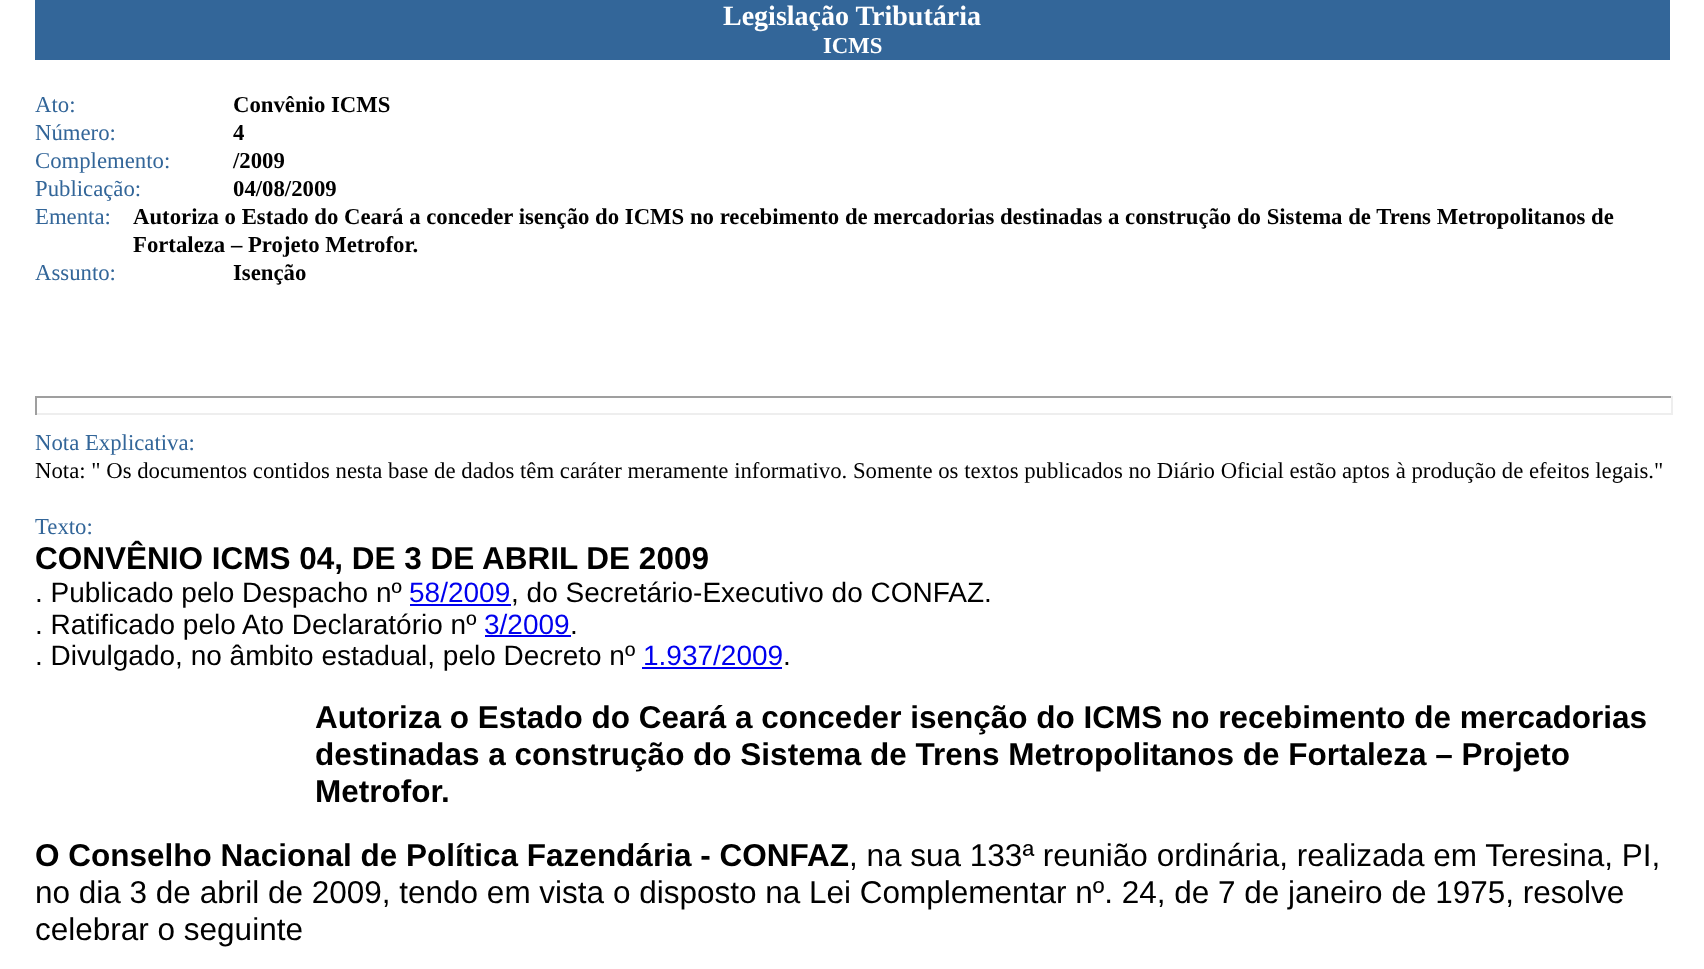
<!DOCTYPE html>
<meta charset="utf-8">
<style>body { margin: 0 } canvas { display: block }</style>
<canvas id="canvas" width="1704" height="969"></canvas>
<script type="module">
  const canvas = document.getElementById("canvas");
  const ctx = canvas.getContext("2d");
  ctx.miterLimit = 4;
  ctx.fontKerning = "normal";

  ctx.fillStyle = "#ffffff";
  ctx.fillRect(0, 0, 1704, 969);
  ctx.fillStyle = "#336699";
  ctx.fillRect(35, 0, 1635, 60);
  ctx.font = "bold 28px Liberation Serif";
  ctx.fillStyle = "#ffffff";
  ctx.fillText("Legislação Tributária", 723, 25);
  ctx.font = "bold 22.75px Liberation Serif";
  ctx.fillText("ICMS", 823, 53);
  ctx.font = "22.75px Liberation Serif";
  ctx.fillStyle = "#336699";
  ctx.fillText("Ato:", 35, 112);
  ctx.font = "bold 22.75px Liberation Serif";
  ctx.fillStyle = "#000000";
  ctx.fillText("Convênio ICMS", 233, 112);
  ctx.font = "22.75px Liberation Serif";
  ctx.fillStyle = "#336699";
  ctx.fillText("Número:", 35, 140);
  ctx.font = "bold 22.75px Liberation Serif";
  ctx.fillStyle = "#000000";
  ctx.fillText("4", 233, 140);
  ctx.font = "22.75px Liberation Serif";
  ctx.fillStyle = "#336699";
  ctx.fillText("Complemento:", 35, 168);
  ctx.font = "bold 22.75px Liberation Serif";
  ctx.fillStyle = "#000000";
  ctx.fillText("/2009", 233, 168);
  ctx.font = "22.75px Liberation Serif";
  ctx.fillStyle = "#336699";
  ctx.fillText("Publicação:", 35, 196);
  ctx.font = "bold 22.75px Liberation Serif";
  ctx.fillStyle = "#000000";
  ctx.fillText("04/08/2009", 233, 196);
  ctx.font = "22.75px Liberation Serif";
  ctx.fillStyle = "#336699";
  ctx.fillText("Ementa:", 35, 224);
  ctx.font = "bold 22.75px Liberation Serif";
  ctx.fillStyle = "#000000";
  ctx.fillText("Autoriza o Estado do Ceará a conceder isenção do ICMS no recebimento de mercadorias destinadas a construção do Sistema de Trens Metropolitanos de", 133, 224);
  ctx.fillText("Fortaleza – Projeto Metrofor.", 133, 252);
  ctx.font = "22.75px Liberation Serif";
  ctx.fillStyle = "#336699";
  ctx.fillText("Assunto:", 35, 280);
  ctx.font = "bold 22.75px Liberation Serif";
  ctx.fillStyle = "#000000";
  ctx.fillText("Isenção", 233, 280);
  ctx.fillStyle = "#9f9f9f";
  ctx.fillRect(35, 396, 1638, 2);
  ctx.fillStyle = "#eeeeee";
  ctx.fillRect(1671, 396, 2, 19);
  ctx.fillRect(35, 413, 1638, 2);
  ctx.fillStyle = "#9f9f9f";
  ctx.fillRect(35, 396, 2, 19);
  ctx.font = "22.75px Liberation Serif";
  ctx.fillStyle = "#336699";
  ctx.fillText("Nota Explicativa:", 35, 450);
  ctx.fillStyle = "#000000";
  ctx.fillText("Nota: \" Os documentos contidos nesta base de dados têm caráter meramente informativo. Somente os textos publicados no Diário Oficial estão aptos à produção de efeitos legais.\"", 35, 478);
  ctx.fillStyle = "#336699";
  ctx.fillText("Texto:", 35, 534);
  ctx.font = "bold 31.5px Liberation Sans";
  ctx.fillStyle = "#000000";
  ctx.fillText("CONVÊNIO ICMS 04, DE 3 DE ABRIL DE 2009", 35, 569);
  ctx.font = "28px Liberation Sans";
  ctx.fillText(". Publicado pelo Despacho nº", 35, 602);
  ctx.fillStyle = "#0000ee";
  ctx.fillText("58/2009", 409, 602);
  ctx.fillRect(410, 604, 101, 2);
  ctx.fillStyle = "#000000";
  ctx.fillText(", do Secretário-Executivo do CONFAZ.", 511, 602);
  ctx.fillText(". Ratificado pelo Ato Declaratório nº", 35, 634);
  ctx.fillStyle = "#0000ee";
  ctx.fillText("3/2009", 484, 634);
  ctx.fillRect(485, 635, 86, 2);
  ctx.fillStyle = "#000000";
  ctx.fillText(".", 570, 634);
  ctx.fillText(". Divulgado, no âmbito estadual, pelo Decreto nº", 35, 665);
  ctx.fillStyle = "#0000ee";
  ctx.fillText("1.937/2009", 643, 665);
  ctx.fillRect(642, 667, 140, 2);
  ctx.fillStyle = "#000000";
  ctx.fillText(".", 783, 665);
  ctx.font = "bold 31.5px Liberation Sans";
  ctx.fillText("Autoriza o Estado do Ceará a conceder isenção do ICMS no recebimento de mercadorias", 315, 728);
  ctx.fillText("destinadas a construção do Sistema de Trens Metropolitanos de Fortaleza – Projeto", 315, 765);
  ctx.fillText("Metrofor.", 315, 802);
  ctx.fillText("O Conselho Nacional de Política Fazendária - CONFAZ", 35, 866);
  ctx.font = "31.5px Liberation Sans";
  ctx.fillText(", na sua 133ª reunião ordinária, realizada em Teresina, PI,", 849, 866);
  ctx.fillText("no dia 3 de abril de 2009, tendo em vista o disposto na Lei Complementar nº. 24, de 7 de janeiro de 1975, resolve", 35, 903);
  ctx.fillText("celebrar o seguinte", 35, 940);
</script>
